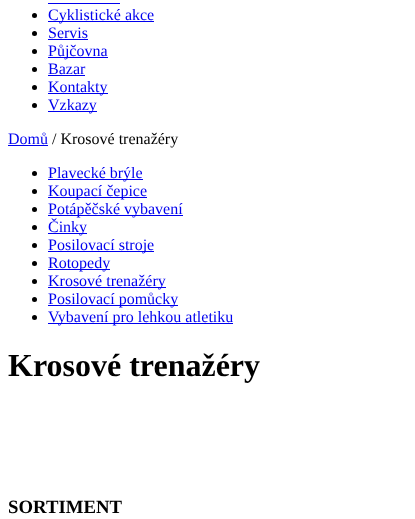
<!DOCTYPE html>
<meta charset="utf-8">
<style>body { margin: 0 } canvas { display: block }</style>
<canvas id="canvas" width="415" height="519"></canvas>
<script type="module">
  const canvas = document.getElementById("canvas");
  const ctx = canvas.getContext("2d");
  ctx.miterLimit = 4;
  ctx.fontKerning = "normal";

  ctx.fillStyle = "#ffffff";
  ctx.fillRect(0, 0, 415, 519);
  ctx.fillStyle = "#0000ee";
  ctx.fillRect(48, 3, 72, 1);
  ctx.fillStyle = "#000000";
  ctx.beginPath();
  ctx.arc(34.5, 15.5, 2.5, 0, Math.PI * 2);
  ctx.fill();
  ctx.fillStyle = "#0000ee";
  ctx.fillRect(48, 21, 106, 1);
  ctx.font = "16px Liberation Serif";
  ctx.fillText("Cyklistické akce", 48, 20);
  ctx.fillStyle = "#000000";
  ctx.beginPath();
  ctx.arc(34.5, 33.5, 2.5, 0, Math.PI * 2);
  ctx.fill();
  ctx.fillStyle = "#0000ee";
  ctx.fillText("Servis", 48, 38);
  ctx.fillRect(48, 39, 40, 1);
  ctx.fillStyle = "#000000";
  ctx.beginPath();
  ctx.arc(34.5, 51.5, 2.5, 0, Math.PI * 2);
  ctx.fill();
  ctx.fillStyle = "#0000ee";
  ctx.fillRect(48, 57, 60, 1);
  ctx.fillText("Půjčovna", 48, 56);
  ctx.fillStyle = "#000000";
  ctx.beginPath();
  ctx.arc(34.5, 69.5, 2.5, 0, Math.PI * 2);
  ctx.fill();
  ctx.fillStyle = "#0000ee";
  ctx.fillText("Bazar", 48, 74);
  ctx.fillRect(48, 75, 37, 1);
  ctx.fillStyle = "#000000";
  ctx.beginPath();
  ctx.arc(34.5, 87.5, 2.5, 0, Math.PI * 2);
  ctx.fill();
  ctx.fillStyle = "#0000ee";
  ctx.fillRect(48, 93, 60, 1);
  ctx.fillText("Kontakty", 48, 92);
  ctx.fillStyle = "#000000";
  ctx.beginPath();
  ctx.arc(34.5, 105.5, 2.5, 0, Math.PI * 2);
  ctx.fill();
  ctx.fillStyle = "#0000ee";
  ctx.fillRect(48, 111, 49, 1);
  ctx.fillText("Vzkazy", 48, 110);
  ctx.fillText("Domů", 8, 144);
  ctx.fillRect(8, 145, 40, 1);
  ctx.fillStyle = "#000000";
  ctx.fillText("/ Krosové trenažéry", 52, 144);
  ctx.beginPath();
  ctx.arc(34.5, 173.5, 2.5, 0, Math.PI * 2);
  ctx.fill();
  ctx.fillStyle = "#0000ee";
  ctx.fillRect(48, 179, 95, 1);
  ctx.fillText("Plavecké brýle", 48, 178);
  ctx.fillStyle = "#000000";
  ctx.beginPath();
  ctx.arc(34.5, 191.5, 2.5, 0, Math.PI * 2);
  ctx.fill();
  ctx.fillStyle = "#0000ee";
  ctx.fillRect(48, 197, 99, 1);
  ctx.fillText("Koupací čepice", 48, 196);
  ctx.fillStyle = "#000000";
  ctx.beginPath();
  ctx.arc(34.5, 209.5, 2.5, 0, Math.PI * 2);
  ctx.fill();
  ctx.fillStyle = "#0000ee";
  ctx.fillRect(48, 215, 135, 1);
  ctx.fillText("Potápěčské vybavení", 48, 214);
  ctx.fillStyle = "#000000";
  ctx.beginPath();
  ctx.arc(34.5, 227.5, 2.5, 0, Math.PI * 2);
  ctx.fill();
  ctx.fillStyle = "#0000ee";
  ctx.fillRect(48, 233, 39, 1);
  ctx.fillText("Činky", 48, 232);
  ctx.fillStyle = "#000000";
  ctx.beginPath();
  ctx.arc(34.5, 245.5, 2.5, 0, Math.PI * 2);
  ctx.fill();
  ctx.fillStyle = "#0000ee";
  ctx.fillRect(48, 251, 106, 1);
  ctx.fillText("Posilovací stroje", 48, 250);
  ctx.fillStyle = "#000000";
  ctx.beginPath();
  ctx.arc(34.5, 263.5, 2.5, 0, Math.PI * 2);
  ctx.fill();
  ctx.fillStyle = "#0000ee";
  ctx.fillRect(48, 269, 62, 1);
  ctx.fillText("Rotopedy", 48, 268);
  ctx.fillStyle = "#000000";
  ctx.beginPath();
  ctx.arc(34.5, 281.5, 2.5, 0, Math.PI * 2);
  ctx.fill();
  ctx.fillStyle = "#0000ee";
  ctx.fillRect(48, 287, 118, 1);
  ctx.fillText("Krosové trenažéry", 48, 286);
  ctx.fillStyle = "#000000";
  ctx.beginPath();
  ctx.arc(34.5, 299.5, 2.5, 0, Math.PI * 2);
  ctx.fill();
  ctx.fillStyle = "#0000ee";
  ctx.fillRect(48, 305, 130, 1);
  ctx.fillText("Posilovací pomůcky", 48, 304);
  ctx.fillStyle = "#000000";
  ctx.beginPath();
  ctx.arc(34.5, 317.5, 2.5, 0, Math.PI * 2);
  ctx.fill();
  ctx.fillStyle = "#0000ee";
  ctx.fillRect(48, 323, 185, 1);
  ctx.fillText("Vybavení pro lehkou atletiku", 48, 322);
  ctx.font = "bold 32px Liberation Serif";
  ctx.fillStyle = "#000000";
  ctx.fillText("Krosové trenažéry", 8, 376);
  ctx.font = "bold 18.75px Liberation Serif";
  ctx.fillText("SORTIMENT", 8, 513);
</script>
